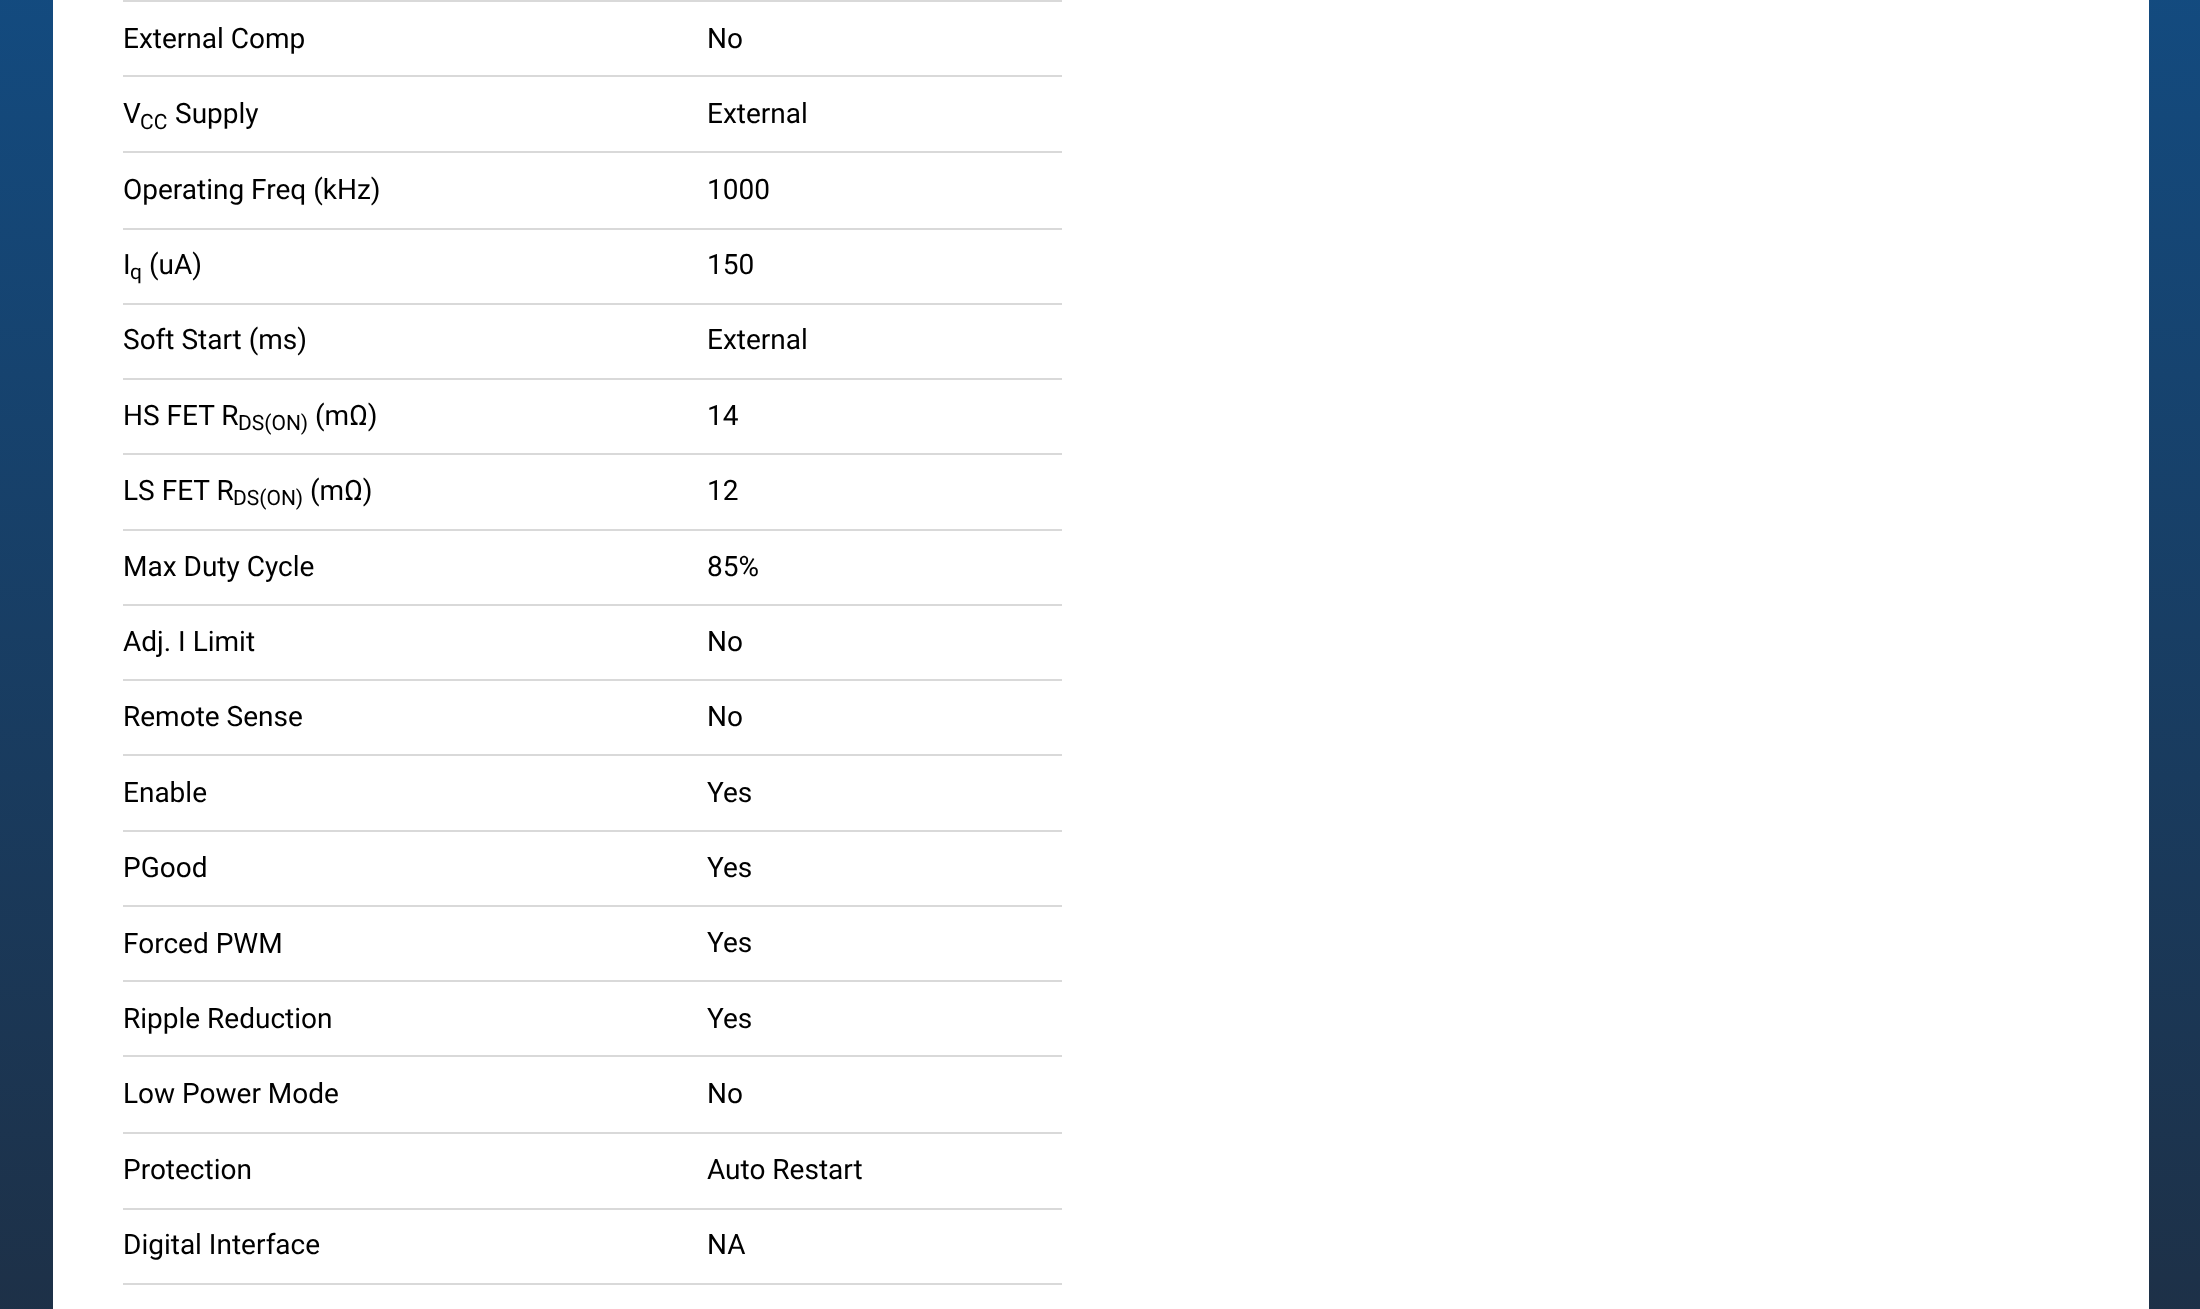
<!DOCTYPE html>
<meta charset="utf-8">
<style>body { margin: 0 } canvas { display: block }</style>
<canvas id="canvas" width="2200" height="1309"></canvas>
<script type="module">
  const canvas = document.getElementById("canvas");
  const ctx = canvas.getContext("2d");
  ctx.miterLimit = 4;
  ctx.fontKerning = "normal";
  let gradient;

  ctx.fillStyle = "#ffffff";
  ctx.fillRect(0, 0, 2200, 1309);
  gradient = ctx.createLinearGradient(1101, 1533, 1101, -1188);
  gradient.addColorStop(0, "#1f2c3e");
  gradient.addColorStop(1, "#0a62b1");
  ctx.fillStyle = gradient;
  ctx.fillRect(0, 0, 2200, 1309);
  ctx.fillStyle = "#ffffff";
  ctx.fillRect(53, 0, 2096, 1309);
  ctx.fillStyle = "#d9d9d9";
  ctx.fillRect(123, 0, 939, 2);
  ctx.font = "28px Roboto";
  ctx.fillStyle = "#000000";
  ctx.fillText("External Comp", 123, 48);
  ctx.fillStyle = "#d9d9d9";
  ctx.fillRect(123, 75, 939, 2);
  ctx.fillStyle = "#000000";
  ctx.fillText("No", 707, 48);
  ctx.fillText("V", 123, 123);
  ctx.font = "21px Roboto";
  ctx.fillText("CC", 140, 129);
  ctx.font = "28px Roboto";
  ctx.fillText("Supply", 175, 123);
  ctx.fillStyle = "#d9d9d9";
  ctx.fillRect(123, 151, 939, 2);
  ctx.fillStyle = "#000000";
  ctx.fillText("External", 707, 123);
  ctx.fillText("Operating Freq (kHz)", 123, 199);
  ctx.fillStyle = "#d9d9d9";
  ctx.fillRect(123, 228, 939, 2);
  ctx.fillStyle = "#000000";
  ctx.fillText("1000", 707, 199);
  ctx.fillText("I", 123, 274);
  ctx.font = "21px Roboto";
  ctx.fillText("q", 130, 279);
  ctx.font = "28px Roboto";
  ctx.fillText("(uA)", 149, 274);
  ctx.fillStyle = "#d9d9d9";
  ctx.fillRect(123, 303, 939, 2);
  ctx.fillStyle = "#000000";
  ctx.fillText("150", 707, 274);
  ctx.fillText("Soft Start (ms)", 123, 349);
  ctx.fillStyle = "#d9d9d9";
  ctx.fillRect(123, 378, 939, 2);
  ctx.fillStyle = "#000000";
  ctx.fillText("External", 707, 349);
  ctx.fillText("HS FET R", 123, 425);
  ctx.font = "21px Roboto";
  ctx.fillText("DS(ON)", 238, 430);
  ctx.font = "28px Roboto";
  ctx.fillText("(mΩ)", 315, 425);
  ctx.fillStyle = "#d9d9d9";
  ctx.fillRect(123, 453, 939, 2);
  ctx.fillStyle = "#000000";
  ctx.fillText("14", 707, 425);
  ctx.fillText("LS FET R", 123, 500);
  ctx.font = "21px Roboto";
  ctx.fillText("DS(ON)", 233, 505);
  ctx.font = "28px Roboto";
  ctx.fillText("(mΩ)", 310, 500);
  ctx.fillStyle = "#d9d9d9";
  ctx.fillRect(123, 529, 939, 2);
  ctx.fillStyle = "#000000";
  ctx.fillText("12", 707, 500);
  ctx.fillText("Max Duty Cycle", 123, 576);
  ctx.fillStyle = "#d9d9d9";
  ctx.fillRect(123, 604, 939, 2);
  ctx.fillStyle = "#000000";
  ctx.fillText("85%", 707, 576);
  ctx.fillText("Adj. I Limit", 123, 651);
  ctx.fillStyle = "#d9d9d9";
  ctx.fillRect(123, 679, 939, 2);
  ctx.fillStyle = "#000000";
  ctx.fillText("No", 707, 651);
  ctx.fillText("Remote Sense", 123, 726);
  ctx.fillStyle = "#d9d9d9";
  ctx.fillRect(123, 754, 939, 2);
  ctx.fillStyle = "#000000";
  ctx.fillText("No", 707, 726);
  ctx.fillText("Enable", 123, 802);
  ctx.fillStyle = "#d9d9d9";
  ctx.fillRect(123, 830, 939, 2);
  ctx.fillStyle = "#000000";
  ctx.fillText("Yes", 707, 802);
  ctx.fillText("PGood", 123, 877);
  ctx.fillStyle = "#d9d9d9";
  ctx.fillRect(123, 905, 939, 2);
  ctx.fillStyle = "#000000";
  ctx.fillText("Yes", 707, 877);
  ctx.fillText("Forced PWM", 123, 953);
  ctx.fillStyle = "#d9d9d9";
  ctx.fillRect(123, 980, 939, 2);
  ctx.fillStyle = "#000000";
  ctx.fillText("Yes", 707, 952);
  ctx.fillText("Ripple Reduction", 123, 1028);
  ctx.fillStyle = "#d9d9d9";
  ctx.fillRect(123, 1055, 939, 2);
  ctx.fillStyle = "#000000";
  ctx.fillText("Yes", 707, 1028);
  ctx.fillText("Low Power Mode", 123, 1103);
  ctx.fillStyle = "#d9d9d9";
  ctx.fillRect(123, 1132, 939, 2);
  ctx.fillStyle = "#000000";
  ctx.fillText("No", 707, 1103);
  ctx.fillText("Protection", 123, 1179);
  ctx.fillStyle = "#d9d9d9";
  ctx.fillRect(123, 1208, 939, 2);
  ctx.fillStyle = "#000000";
  ctx.fillText("Auto Restart", 707, 1179);
  ctx.fillText("Digital Interface", 123, 1254);
  ctx.fillStyle = "#d9d9d9";
  ctx.fillRect(123, 1283, 939, 2);
  ctx.fillStyle = "#000000";
  ctx.fillText("NA", 707, 1254);
</script>
